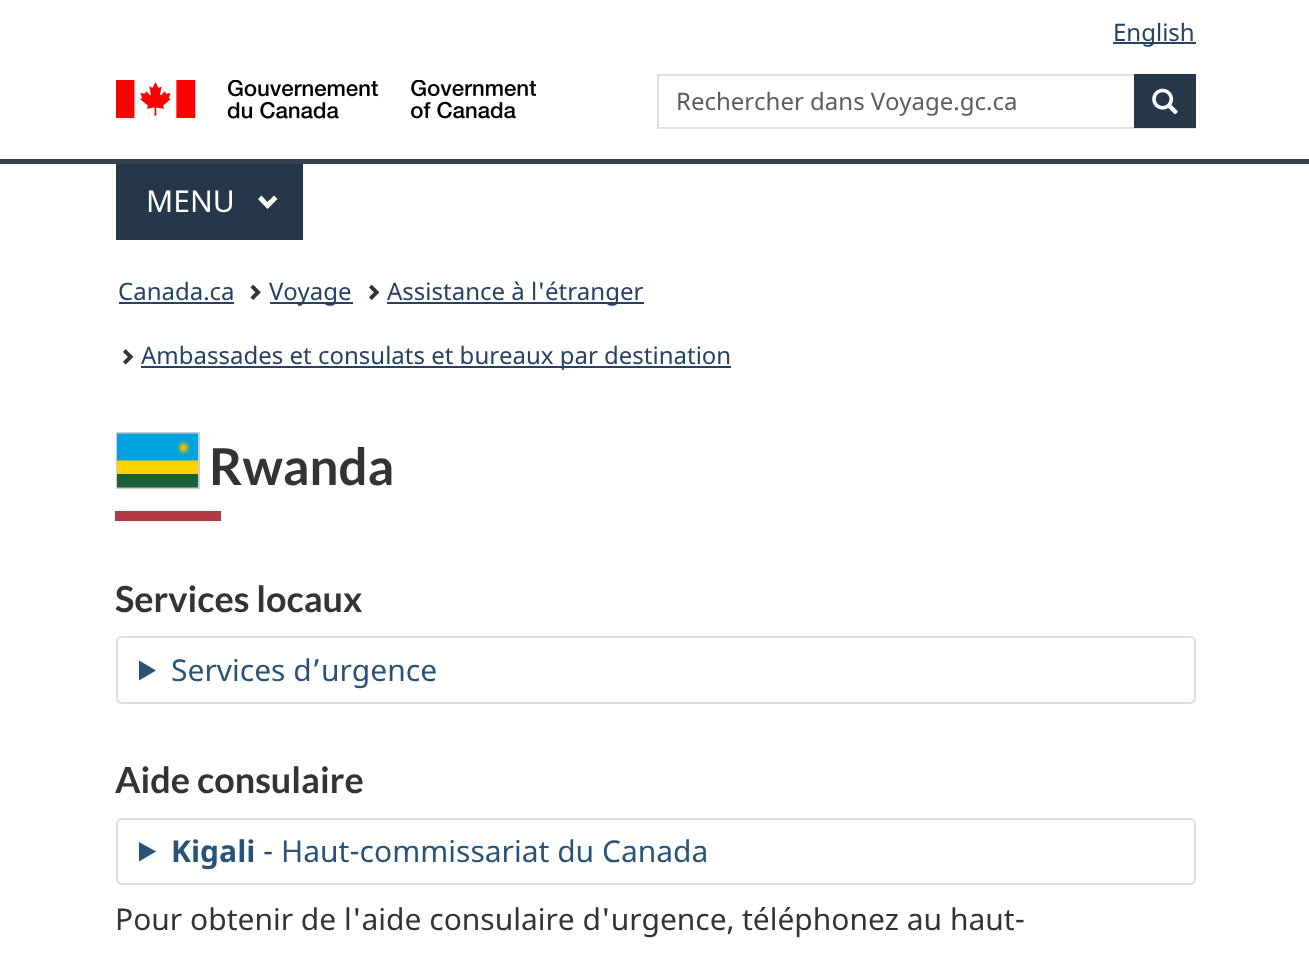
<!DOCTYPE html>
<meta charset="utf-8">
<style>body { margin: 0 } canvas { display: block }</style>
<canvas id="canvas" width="1309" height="958"></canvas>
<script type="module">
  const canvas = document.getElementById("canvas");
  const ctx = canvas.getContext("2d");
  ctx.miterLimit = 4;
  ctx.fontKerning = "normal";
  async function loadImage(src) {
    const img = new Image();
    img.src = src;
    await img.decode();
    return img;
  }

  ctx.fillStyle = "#ffffff";
  ctx.fillRect(0, 0, 1309, 958);
  ctx.fillStyle = "#284162";
  ctx.fillRect(1113, 42, 83, 2);
  ctx.font = "24px Noto Sans";
  ctx.fillText("English", 1113, 41);
  ctx.drawImage(await loadImage("img1.png"), 116, 80, 420, 39);
  ctx.strokeStyle = "#e0e0e0";
  ctx.lineWidth = 2;
  ctx.strokeRect(658, 75, 537, 53);
  ctx.fillStyle = "#5c5c5c";
  ctx.fillText("Rechercher dans Voyage.gc.ca", 676, 110);
  ctx.fillStyle = "#26374a";
  ctx.fillRect(1134, 74, 62, 54);
  ctx.drawImage(await loadImage("img2.png"), 1152, 88, 26, 27);
  ctx.fillStyle = "#38414d";
  ctx.fillRect(0, 159, 1309, 5);
  ctx.fillStyle = "#26374a";
  ctx.fillRect(116, 164, 187, 76);
  ctx.font = "30px Noto Sans";
  ctx.fillStyle = "#ffffff";
  ctx.fillText("MENU", 146, 212);
  ctx.beginPath();
  ctx.moveTo(277.5, 199);
  ctx.lineTo(267.5, 209);
  ctx.lineTo(258, 199);
  ctx.lineTo(261.5, 195.5);
  ctx.lineTo(267.5, 202);
  ctx.lineTo(274, 195.5);
  ctx.closePath();
  ctx.fill();
  ctx.font = "24px Noto Sans";
  ctx.fillStyle = "#284162";
  ctx.fillText("Canada.ca", 118, 300);
  ctx.fillRect(119, 302, 115, 2);
  ctx.drawImage(await loadImage("img3.png"), 250, 284, 11, 16);
  ctx.fillRect(270, 302, 83, 2);
  ctx.fillText("Voyage", 269, 300);
  ctx.drawImage(await loadImage("img4.png"), 369, 284, 11, 16);
  ctx.fillRect(387, 302, 257, 2);
  ctx.fillText("Assistance à l'étranger", 387, 300);
  ctx.drawImage(await loadImage("img5.png"), 123, 349, 11, 16);
  ctx.fillRect(141, 366, 590, 2);
  ctx.fillText("Ambassades et consulats et bureaux par destination", 141, 364);
  ctx.fillStyle = "#af3c43";
  ctx.fillRect(115, 511, 106, 10);
  ctx.strokeStyle = "#cdcdcd";
  ctx.strokeRect(117, 433, 82, 55);
  ctx.drawImage(await loadImage("img6.png"), 117, 433, 81, 55);
  ctx.font = "bold 51px Lato";
  ctx.fillStyle = "#333333";
  ctx.fillText("Rwanda", 209, 485);
  ctx.font = "bold 36px Lato";
  ctx.fillText("Services locaux", 115, 612);
  ctx.beginPath();
  ctx.roundRect(117, 637, 1078, 66, 5);
  ctx.strokeStyle = "#dddddd";
  ctx.stroke();
  ctx.fillStyle = "#295376";
  ctx.beginPath();
  ctx.moveTo(139, 660.5);
  ctx.lineTo(156, 670.5);
  ctx.lineTo(139, 680.5);
  ctx.closePath();
  ctx.fill();
  ctx.font = "30px Noto Sans";
  ctx.fillText("Services d’urgence", 171, 681);
  ctx.font = "bold 36px Lato";
  ctx.fillStyle = "#333333";
  ctx.fillText("Aide consulaire", 115, 793);
  ctx.beginPath();
  ctx.roundRect(117, 819, 1078, 65, 5);
  ctx.stroke();
  ctx.fillStyle = "#295376";
  ctx.beginPath();
  ctx.moveTo(139, 842);
  ctx.lineTo(156, 851.5);
  ctx.lineTo(139, 861.5);
  ctx.closePath();
  ctx.fill();
  ctx.font = "bold 30px Noto Sans";
  ctx.fillText("Kigali", 171, 862);
  ctx.font = "30px Noto Sans";
  ctx.fillText("- Haut-commissariat du Canada", 263, 862);
  ctx.fillStyle = "#333333";
  ctx.fillText("Pour obtenir de l'aide consulaire d'urgence, téléphonez au haut-", 115, 930);
</script>
